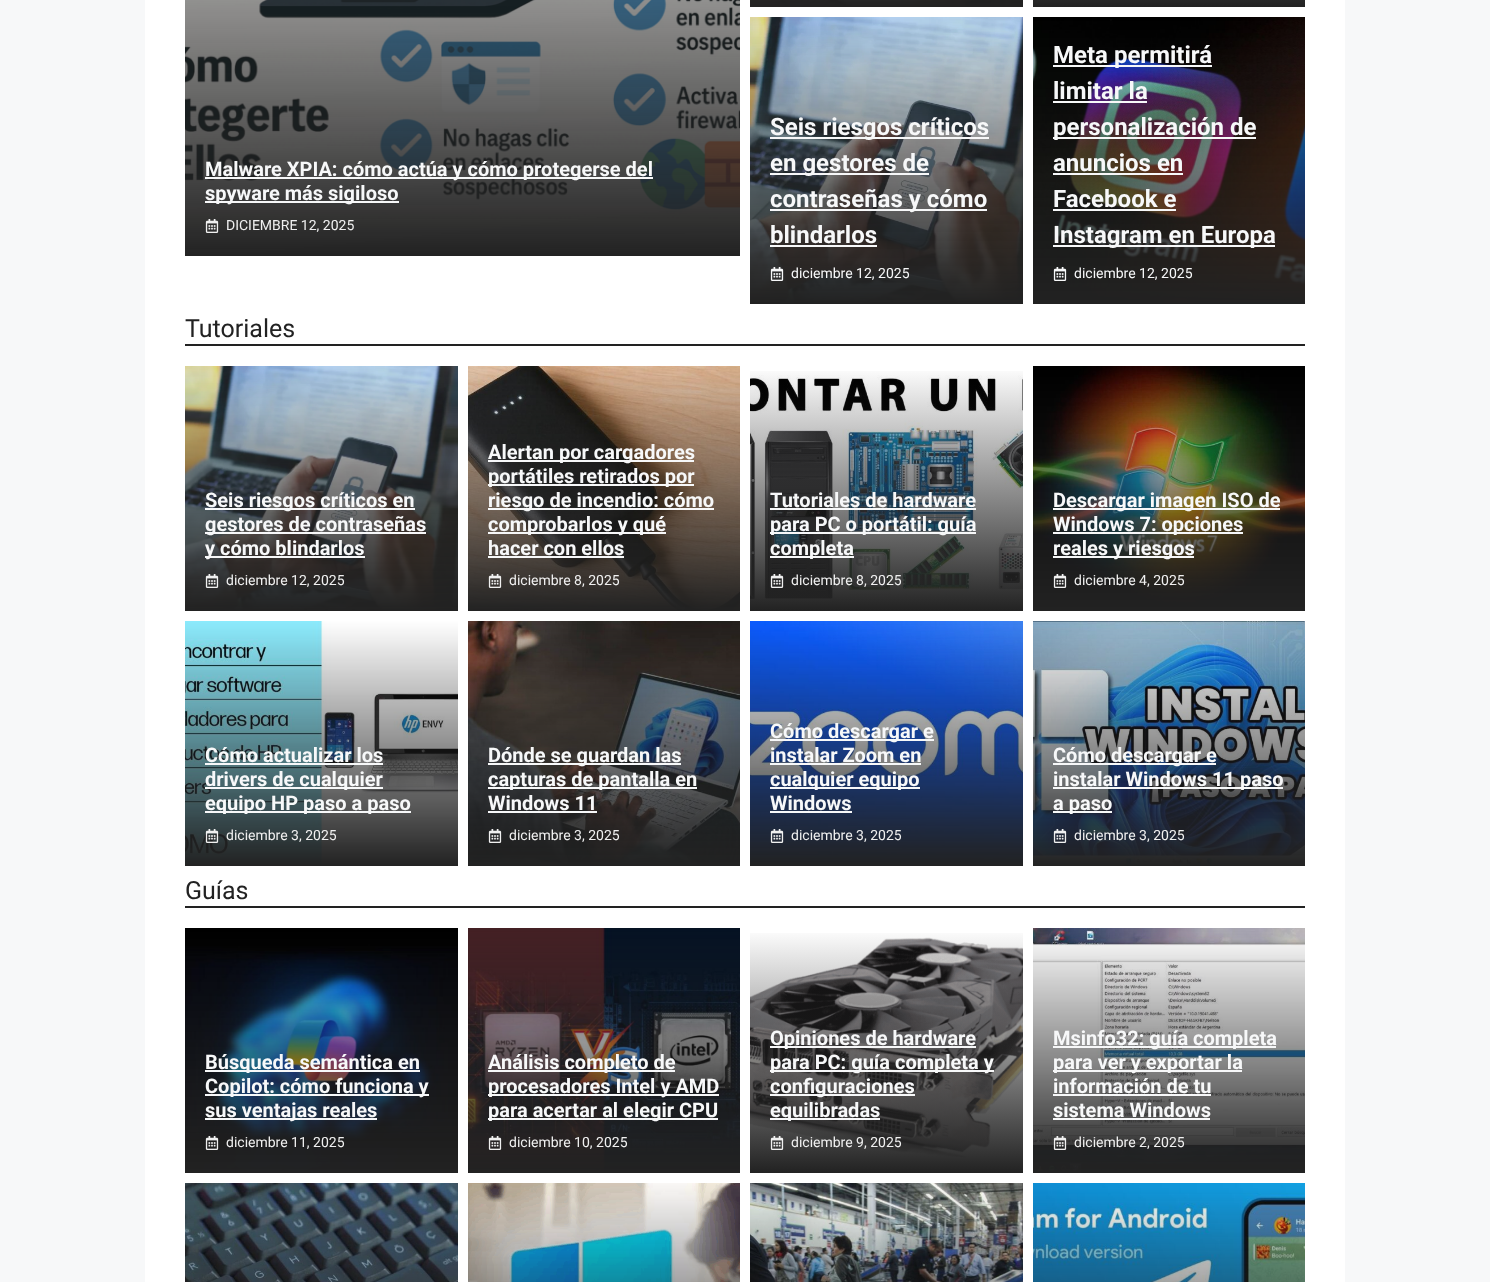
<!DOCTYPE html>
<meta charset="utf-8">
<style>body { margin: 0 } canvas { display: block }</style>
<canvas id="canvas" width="1490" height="1282"></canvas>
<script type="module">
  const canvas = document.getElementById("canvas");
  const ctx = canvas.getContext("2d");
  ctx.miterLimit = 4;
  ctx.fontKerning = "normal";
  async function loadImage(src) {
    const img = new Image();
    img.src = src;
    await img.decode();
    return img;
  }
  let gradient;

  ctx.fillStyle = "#f7f8f9";
  ctx.fillRect(0, 0, 1490, 1282);
  ctx.fillStyle = "#ffffff";
  ctx.fillRect(145, 0, 1200, 1282);
  ctx.drawImage(await loadImage("img1.png"), 185, 0, 555, 256);
  ctx.fillStyle = "#f7f8f9";
  ctx.fillRect(205, 177, 448, 2);
  ctx.font = "bold 20px Roboto";
  ctx.fillText("Malware XPIA: cómo actúa y cómo protegerse del", 205, 176);
  ctx.fillRect(205, 201, 194, 2);
  ctx.fillText("spyware más sigiloso", 205, 200);
  ctx.drawImage(await loadImage("img2.png"), 205, 219, 14, 14);
  ctx.font = "14px Roboto";
  ctx.fillStyle = "#f0f0f0";
  ctx.fillText("DICIEMBRE 12, 2025", 226, 230);
  ctx.drawImage(await loadImage("img3.png"), 750, 0, 273, 7);
  gradient = ctx.createLinearGradient(1169, -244, 1169, 7);
  gradient.addColorStop(0, "#ffffff");
  gradient.addColorStop(1, "#222222");
  ctx.fillStyle = gradient;
  ctx.fillRect(1033, 0, 272, 7);
  ctx.drawImage(await loadImage("img4.png"), 750, 17, 273, 287);
  ctx.fillStyle = "#f7f8f9";
  ctx.fillRect(770, 137, 219, 2);
  ctx.font = "bold 24px Roboto";
  ctx.fillText("Seis riesgos críticos", 770, 135);
  ctx.fillRect(770, 173, 159, 2);
  ctx.fillText("en gestores de", 770, 171);
  ctx.fillRect(770, 209, 217, 2);
  ctx.fillText("contraseñas y cómo", 770, 207);
  ctx.fillText("blindarlos", 770, 243);
  ctx.fillRect(770, 245, 107, 2);
  ctx.drawImage(await loadImage("img5.png"), 770, 267, 14, 14);
  ctx.font = "14px Roboto";
  ctx.fillText("diciembre 12, 2025", 791, 278);
  ctx.drawImage(await loadImage("img6.png"), 1033, 17, 272, 287);
  ctx.fillRect(1053, 65, 159, 2);
  ctx.font = "bold 24px Roboto";
  ctx.fillText("Meta permitirá", 1053, 63);
  ctx.fillText("limitar la", 1053, 99);
  ctx.fillRect(1053, 101, 94, 2);
  ctx.fillRect(1053, 137, 203, 2);
  ctx.fillText("personalización de", 1053, 135);
  ctx.fillText("anuncios en", 1053, 171);
  ctx.fillRect(1053, 173, 130, 2);
  ctx.fillText("Facebook e", 1053, 207);
  ctx.fillRect(1053, 209, 123, 2);
  ctx.fillRect(1053, 245, 222, 2);
  ctx.fillText("Instagram en Europa", 1053, 243);
  ctx.drawImage(await loadImage("img7.png"), 1053, 267, 14, 14);
  ctx.font = "14px Roboto";
  ctx.fillText("diciembre 12, 2025", 1074, 278);
  ctx.fillStyle = "#222222";
  ctx.fillRect(185, 344, 1120, 2);
  ctx.font = "25px Roboto";
  ctx.fillText("Tutoriales", 185, 337);
  ctx.drawImage(await loadImage("img8.png"), 185, 366, 273, 245);
  ctx.fillStyle = "#f7f8f9";
  ctx.fillRect(205, 508, 210, 2);
  ctx.font = "bold 20px Roboto";
  ctx.fillText("Seis riesgos críticos en", 205, 507);
  ctx.fillRect(205, 532, 221, 2);
  ctx.fillText("gestores de contraseñas", 205, 531);
  ctx.fillRect(205, 556, 160, 2);
  ctx.fillText("y cómo blindarlos", 205, 555);
  ctx.drawImage(await loadImage("img9.png"), 205, 574, 14, 14);
  ctx.font = "14px Roboto";
  ctx.fillStyle = "#f0f0f0";
  ctx.fillText("diciembre 12, 2025", 226, 585);
  ctx.drawImage(await loadImage("img10.png"), 468, 366, 272, 245);
  ctx.fillStyle = "#f7f8f9";
  ctx.fillRect(488, 460, 206, 2);
  ctx.font = "bold 20px Roboto";
  ctx.fillText("Alertan por cargadores", 488, 459);
  ctx.fillRect(488, 484, 206, 2);
  ctx.fillText("portátiles retirados por", 488, 483);
  ctx.fillRect(488, 508, 226, 2);
  ctx.fillText("riesgo de incendio: cómo", 488, 507);
  ctx.fillRect(488, 532, 178, 2);
  ctx.fillText("comprobarlos y qué", 488, 531);
  ctx.fillText("hacer con ellos", 488, 555);
  ctx.fillRect(488, 556, 136, 2);
  ctx.drawImage(await loadImage("img11.png"), 488, 574, 14, 14);
  ctx.font = "14px Roboto";
  ctx.fillStyle = "#f0f0f0";
  ctx.fillText("diciembre 8, 2025", 509, 585);
  ctx.drawImage(await loadImage("img12.png"), 750, 375, 273, 227);
  gradient = ctx.createLinearGradient(887, 366, 887, 611);
  gradient.addColorStop(0, "rgba(34, 34, 34, 0)");
  gradient.addColorStop(1, "#222222");
  ctx.fillStyle = gradient;
  ctx.fillRect(750, 371, 273, 240);
  ctx.font = "bold 20px Roboto";
  ctx.fillStyle = "#f7f8f9";
  ctx.fillText("Tutoriales de hardware", 770, 507);
  ctx.fillRect(770, 508, 206, 2);
  ctx.fillRect(770, 532, 206, 2);
  ctx.fillText("para PC o portátil: guía", 770, 531);
  ctx.fillRect(770, 556, 84, 2);
  ctx.fillText("completa", 770, 555);
  ctx.drawImage(await loadImage("img13.png"), 770, 574, 14, 14);
  ctx.font = "14px Roboto";
  ctx.fillStyle = "#f0f0f0";
  ctx.fillText("diciembre 8, 2025", 791, 585);
  ctx.drawImage(await loadImage("img14.png"), 1033, 366, 272, 245);
  ctx.fillStyle = "#f7f8f9";
  ctx.fillRect(1053, 508, 227, 2);
  ctx.font = "bold 20px Roboto";
  ctx.fillText("Descargar imagen ISO de", 1053, 507);
  ctx.fillRect(1053, 532, 190, 2);
  ctx.fillText("Windows 7: opciones", 1053, 531);
  ctx.fillRect(1053, 556, 141, 2);
  ctx.fillText("reales y riesgos", 1053, 555);
  ctx.drawImage(await loadImage("img15.png"), 1053, 574, 14, 14);
  ctx.font = "14px Roboto";
  ctx.fillStyle = "#f0f0f0";
  ctx.fillText("diciembre 4, 2025", 1074, 585);
  ctx.drawImage(await loadImage("img16.png"), 185, 621, 273, 245);
  ctx.font = "bold 20px Roboto";
  ctx.fillStyle = "#f7f8f9";
  ctx.fillText("Cómo actualizar los", 205, 762);
  ctx.fillRect(205, 763, 178, 2);
  ctx.fillRect(205, 787, 178, 2);
  ctx.fillText("drivers de cualquier", 205, 786);
  ctx.fillRect(205, 811, 206, 2);
  ctx.fillText("equipo HP paso a paso", 205, 810);
  ctx.drawImage(await loadImage("img17.png"), 205, 829, 14, 14);
  ctx.font = "14px Roboto";
  ctx.fillStyle = "#f0f0f0";
  ctx.fillText("diciembre 3, 2025", 226, 840);
  ctx.drawImage(await loadImage("img18.png"), 468, 621, 272, 245);
  ctx.fillStyle = "#f7f8f9";
  ctx.fillRect(488, 763, 193, 2);
  ctx.font = "bold 20px Roboto";
  ctx.fillText("Dónde se guardan las", 488, 762);
  ctx.fillRect(488, 787, 209, 2);
  ctx.fillText("capturas de pantalla en", 488, 786);
  ctx.fillText("Windows 11", 488, 810);
  ctx.fillRect(488, 811, 109, 2);
  ctx.drawImage(await loadImage("img19.png"), 488, 829, 14, 14);
  ctx.font = "14px Roboto";
  ctx.fillStyle = "#f0f0f0";
  ctx.fillText("diciembre 3, 2025", 509, 840);
  ctx.drawImage(await loadImage("img20.png"), 750, 621, 273, 245);
  ctx.fillStyle = "#f7f8f9";
  ctx.fillRect(770, 739, 164, 2);
  ctx.font = "bold 20px Roboto";
  ctx.fillText("Cómo descargar e", 770, 738);
  ctx.fillText("instalar Zoom en", 770, 762);
  ctx.fillRect(770, 763, 151, 2);
  ctx.fillRect(770, 787, 150, 2);
  ctx.fillText("cualquier equipo", 770, 786);
  ctx.fillText("Windows", 770, 810);
  ctx.fillRect(770, 811, 82, 2);
  ctx.drawImage(await loadImage("img21.png"), 770, 829, 14, 14);
  ctx.font = "14px Roboto";
  ctx.fillStyle = "#f0f0f0";
  ctx.fillText("diciembre 3, 2025", 791, 840);
  ctx.drawImage(await loadImage("img22.png"), 1033, 621, 272, 245);
  ctx.fillStyle = "#f7f8f9";
  ctx.fillRect(1053, 763, 163, 2);
  ctx.font = "bold 20px Roboto";
  ctx.fillText("Cómo descargar e", 1053, 762);
  ctx.fillRect(1053, 787, 230, 2);
  ctx.fillText("instalar Windows 11 paso", 1053, 786);
  ctx.fillRect(1053, 811, 59, 2);
  ctx.fillText("a paso", 1053, 810);
  ctx.drawImage(await loadImage("img23.png"), 1053, 829, 14, 14);
  ctx.font = "14px Roboto";
  ctx.fillStyle = "#f0f0f0";
  ctx.fillText("diciembre 3, 2025", 1074, 840);
  ctx.fillStyle = "#222222";
  ctx.fillRect(185, 906, 1120, 2);
  ctx.font = "25px Roboto";
  ctx.fillText("Guías", 185, 899);
  ctx.drawImage(await loadImage("img24.png"), 185, 928, 273, 245);
  ctx.fillStyle = "#f7f8f9";
  ctx.fillRect(205, 1070, 215, 2);
  ctx.font = "bold 20px Roboto";
  ctx.fillText("Búsqueda semántica en", 205, 1069);
  ctx.fillRect(205, 1094, 224, 2);
  ctx.fillText("Copilot: cómo funciona y", 205, 1093);
  ctx.fillRect(205, 1118, 172, 2);
  ctx.fillText("sus ventajas reales", 205, 1117);
  ctx.drawImage(await loadImage("img25.png"), 205, 1136, 14, 14);
  ctx.font = "14px Roboto";
  ctx.fillStyle = "#f0f0f0";
  ctx.fillText("diciembre 11, 2025", 226, 1147);
  ctx.drawImage(await loadImage("img26.png"), 468, 928, 272, 245);
  ctx.fillStyle = "#f7f8f9";
  ctx.fillRect(488, 1070, 187, 2);
  ctx.font = "bold 20px Roboto";
  ctx.fillText("Análisis completo de", 488, 1069);
  ctx.fillRect(488, 1094, 231, 2);
  ctx.fillText("procesadores Intel y AMD", 488, 1093);
  ctx.fillRect(488, 1118, 230, 2);
  ctx.fillText("para acertar al elegir CPU", 488, 1117);
  ctx.drawImage(await loadImage("img27.png"), 488, 1136, 14, 14);
  ctx.font = "14px Roboto";
  ctx.fillStyle = "#f0f0f0";
  ctx.fillText("diciembre 10, 2025", 509, 1147);
  ctx.drawImage(await loadImage("img28.png"), 750, 937, 273, 232);
  gradient = ctx.createLinearGradient(887, 928, 887, 1173);
  gradient.addColorStop(0, "rgba(34, 34, 34, 0)");
  gradient.addColorStop(1, "#222222");
  ctx.fillStyle = gradient;
  ctx.fillRect(750, 933, 273, 240);
  ctx.fillStyle = "#f7f8f9";
  ctx.fillRect(770, 1046, 206, 2);
  ctx.font = "bold 20px Roboto";
  ctx.fillText("Opiniones de hardware", 770, 1045);
  ctx.fillRect(770, 1070, 224, 2);
  ctx.fillText("para PC: guía completa y", 770, 1069);
  ctx.fillRect(770, 1094, 145, 2);
  ctx.fillText("configuraciones", 770, 1093);
  ctx.fillRect(770, 1118, 110, 2);
  ctx.fillText("equilibradas", 770, 1117);
  ctx.drawImage(await loadImage("img29.png"), 770, 1136, 14, 14);
  ctx.font = "14px Roboto";
  ctx.fillStyle = "#f0f0f0";
  ctx.fillText("diciembre 9, 2025", 791, 1147);
  ctx.drawImage(await loadImage("img30.png"), 1033, 928, 272, 245);
  ctx.fillStyle = "#f7f8f9";
  ctx.fillRect(1053, 1046, 223, 2);
  ctx.font = "bold 20px Roboto";
  ctx.fillText("Msinfo32: guía completa", 1053, 1045);
  ctx.fillRect(1053, 1070, 189, 2);
  ctx.fillText("para ver y exportar la", 1053, 1069);
  ctx.fillText("información de tu", 1053, 1093);
  ctx.fillRect(1053, 1094, 158, 2);
  ctx.fillText("sistema Windows", 1053, 1117);
  ctx.fillRect(1053, 1118, 157, 2);
  ctx.drawImage(await loadImage("img31.png"), 1053, 1136, 14, 14);
  ctx.font = "14px Roboto";
  ctx.fillStyle = "#f0f0f0";
  ctx.fillText("diciembre 2, 2025", 1074, 1147);
  ctx.drawImage(await loadImage("img32.png"), 185, 1183, 273, 99);
  ctx.drawImage(await loadImage("img33.png"), 468, 1183, 272, 99);
  ctx.drawImage(await loadImage("img34.png"), 750, 1183, 273, 99);
  ctx.drawImage(await loadImage("img35.png"), 1033, 1183, 272, 99);
</script>
